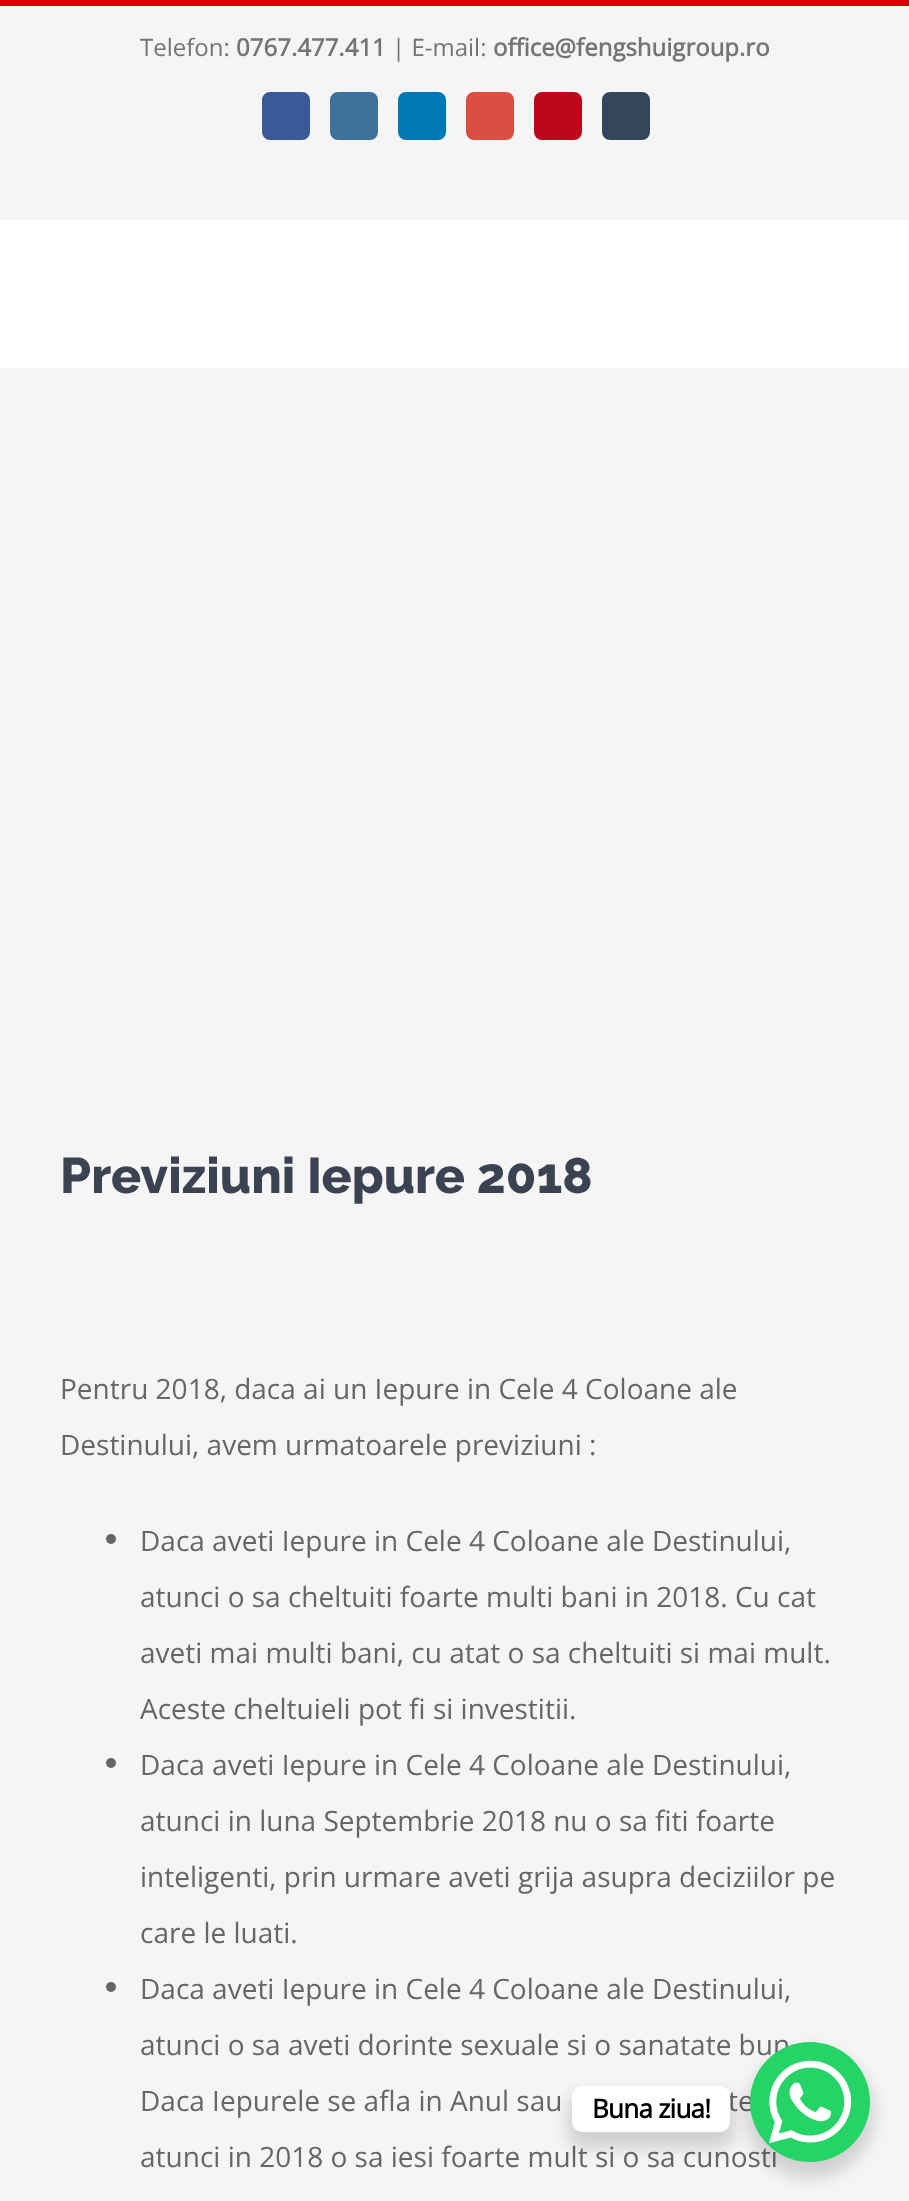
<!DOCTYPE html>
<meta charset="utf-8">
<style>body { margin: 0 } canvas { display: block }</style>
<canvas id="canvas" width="909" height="2201"></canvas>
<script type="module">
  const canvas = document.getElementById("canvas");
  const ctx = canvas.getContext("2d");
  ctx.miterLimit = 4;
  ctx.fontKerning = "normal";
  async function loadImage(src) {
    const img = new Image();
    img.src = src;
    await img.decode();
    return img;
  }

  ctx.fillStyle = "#f5f5f5";
  ctx.fillRect(0, 0, 909, 2201);
  ctx.fillStyle = "#d00000";
  ctx.fillRect(0, 0, 909, 6);
  ctx.font = "24px Open Sans";
  ctx.fillStyle = "#747474";
  ctx.fillText("Telefon:", 140, 56);
  ctx.font = "bold 24px Open Sans";
  ctx.fillText("0767.477.411", 236, 56);
  ctx.font = "24px Open Sans";
  ctx.fillText("| E-mail:", 392, 56);
  ctx.font = "bold 24px Open Sans";
  ctx.fillText("office@fengshuigroup.ro", 493, 56);
  ctx.fillStyle = "#3b5998";
  ctx.beginPath();
  ctx.roundRect(263, 93, 46, 46, 7);
  ctx.fill();
  ctx.strokeStyle = "#3b5998";
  ctx.lineWidth = 2;
  ctx.stroke();
  ctx.fillStyle = "#3f729b";
  ctx.beginPath();
  ctx.roundRect(331, 93, 46, 46, 7);
  ctx.fill();
  ctx.strokeStyle = "#3f729b";
  ctx.stroke();
  ctx.fillStyle = "#0077b5";
  ctx.beginPath();
  ctx.roundRect(399, 93, 46, 46, 7);
  ctx.fill();
  ctx.strokeStyle = "#0077b5";
  ctx.stroke();
  ctx.fillStyle = "#dc4e41";
  ctx.beginPath();
  ctx.roundRect(467, 93, 46, 46, 7);
  ctx.fill();
  ctx.strokeStyle = "#dc4e41";
  ctx.stroke();
  ctx.fillStyle = "#bd081c";
  ctx.beginPath();
  ctx.roundRect(535, 93, 46, 46, 7);
  ctx.fill();
  ctx.strokeStyle = "#bd081c";
  ctx.stroke();
  ctx.fillStyle = "#35465c";
  ctx.beginPath();
  ctx.roundRect(603, 93, 46, 46, 7);
  ctx.fill();
  ctx.strokeStyle = "#35465c";
  ctx.stroke();
  ctx.fillStyle = "#ffffff";
  ctx.fillRect(0, 220, 909, 148);
  ctx.font = "100 50px Raleway";
  ctx.fillStyle = "#3b4251";
  ctx.fillText("Previziuni Iepure 2018", 60, 1193);
  ctx.font = "28px Open Sans";
  ctx.fillStyle = "#666666";
  ctx.fillText("Pentru 2018, daca ai un Iepure in Cele 4 Coloane ale", 60, 1399);
  ctx.fillText("Destinului, avem urmatoarele previziuni :", 60, 1455);
  ctx.beginPath();
  ctx.arc(111, 1539, 5, 0, Math.PI * 2);
  ctx.fill();
  ctx.fillText("Daca aveti Iepure in Cele 4 Coloane ale Destinului,", 140, 1551);
  ctx.fillText("atunci o sa cheltuiti foarte multi bani in 2018. Cu cat", 140, 1607);
  ctx.fillText("aveti mai multi bani, cu atat o sa cheltuiti si mai mult.", 140, 1663);
  ctx.fillText("Aceste cheltuieli pot fi si investitii.", 140, 1719);
  ctx.beginPath();
  ctx.arc(111, 1763, 5, 0, Math.PI * 2);
  ctx.fill();
  ctx.fillText("Daca aveti Iepure in Cele 4 Coloane ale Destinului,", 140, 1775);
  ctx.fillText("atunci in luna Septembrie 2018 nu o sa fiti foarte", 140, 1831);
  ctx.fillText("inteligenti, prin urmare aveti grija asupra deciziilor pe", 140, 1887);
  ctx.fillText("care le luati.", 140, 1943);
  ctx.beginPath();
  ctx.arc(111, 1987, 5, 0, Math.PI * 2);
  ctx.fill();
  ctx.fillText("Daca aveti Iepure in Cele 4 Coloane ale Destinului,", 140, 1999);
  ctx.fillText("atunci o sa aveti dorinte sexuale si o sanatate bun", 140, 2055);
  ctx.fillText("Daca Iepurele se afla in Anul sau", 140, 2111);
  ctx.fillText("te", 728, 2111);
  ctx.fillText("atunci in 2018 o sa iesi foarte mult si o sa cunosti", 140, 2167);
  ctx.fillStyle = "rgba(0, 0, 0, 0.15)";
  ctx.filter = "blur(8px)";
  ctx.beginPath();
  ctx.roundRect(746, 2050, 128, 128, 64);
  ctx.fill();
  ctx.filter = "none";
  ctx.fillStyle = "#25d366";
  ctx.beginPath();
  ctx.arc(810, 2102, 60, 0, Math.PI * 2);
  ctx.fill();
  ctx.fillStyle = "rgba(0, 0, 0, 0.15)";
  ctx.filter = "blur(8px)";
  ctx.beginPath();
  ctx.roundRect(568, 2094, 166, 54, 14);
  ctx.fill();
  ctx.filter = "none";
  ctx.fillStyle = "#ffffff";
  ctx.beginPath();
  ctx.roundRect(572, 2086, 158, 46, 10);
  ctx.fill();
  ctx.letterSpacing = "-0.75px";
  ctx.font = "bold 26px Open Sans";
  ctx.fillStyle = "#000000";
  ctx.fillText("Buna ziua!", 592, 2118);
  ctx.drawImage(await loadImage("img1.png"), 769, 2060, 83, 84);
</script>
